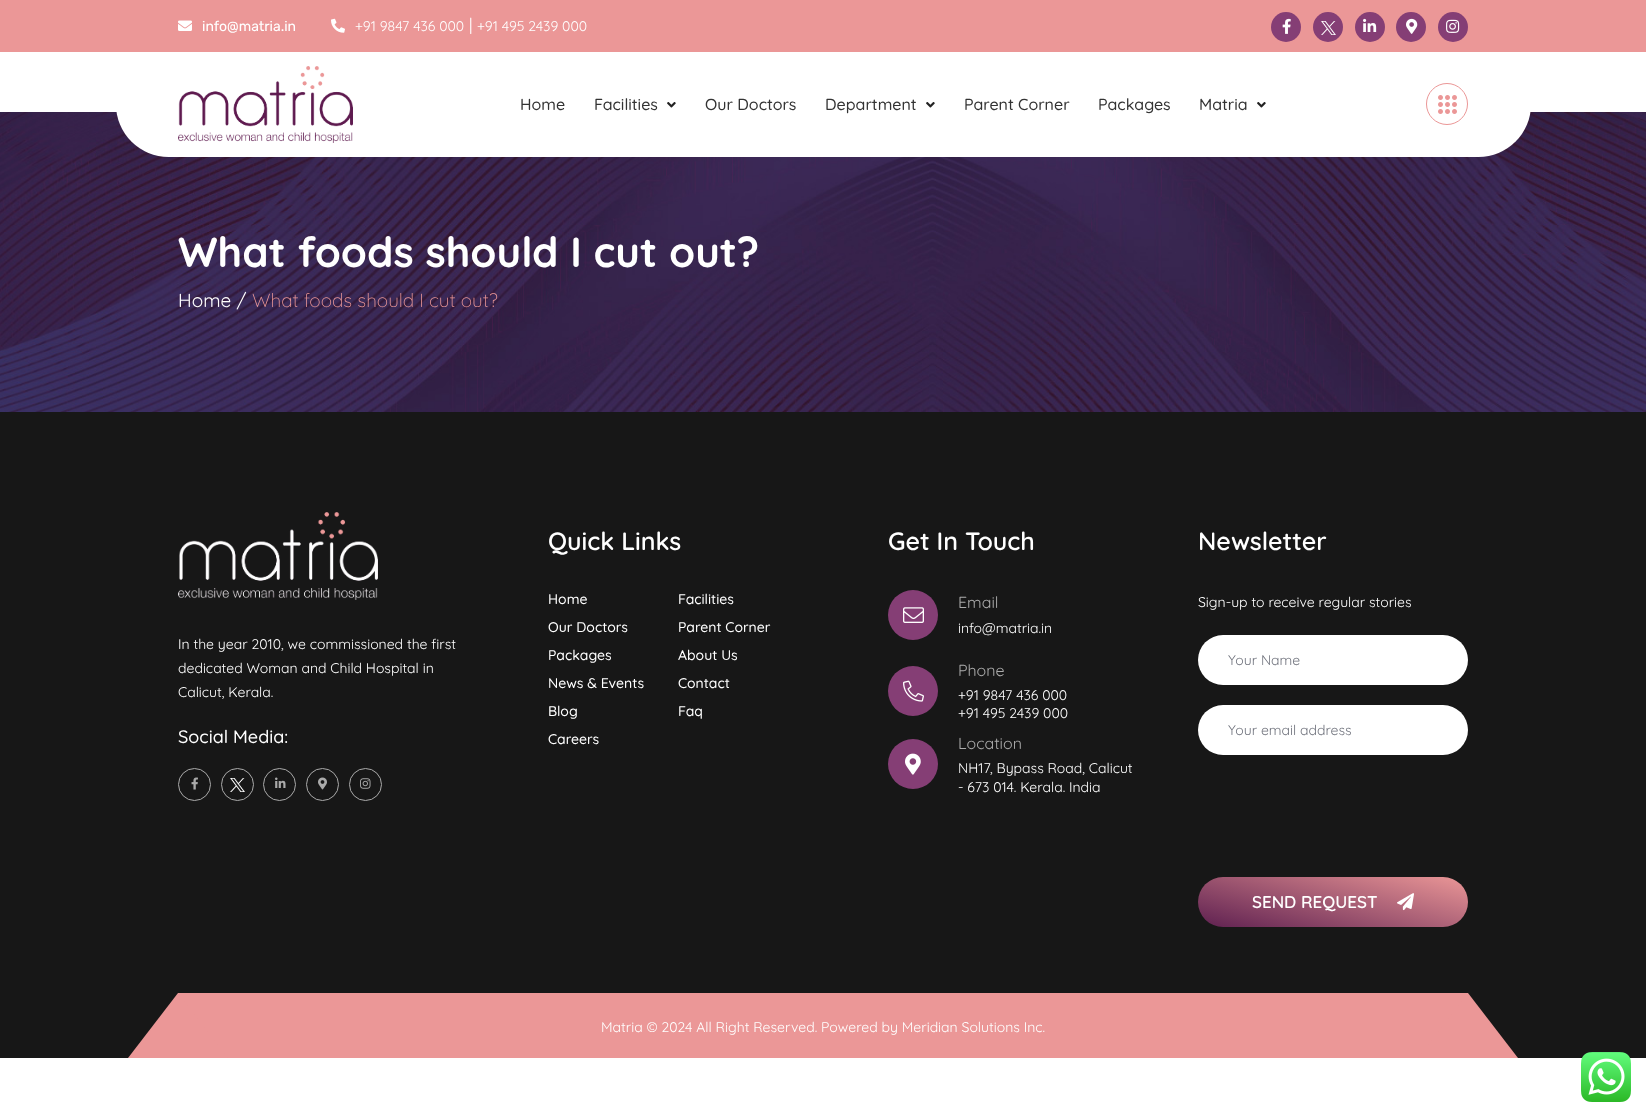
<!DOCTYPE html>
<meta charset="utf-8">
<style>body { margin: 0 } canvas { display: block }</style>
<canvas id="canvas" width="1646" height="1117"></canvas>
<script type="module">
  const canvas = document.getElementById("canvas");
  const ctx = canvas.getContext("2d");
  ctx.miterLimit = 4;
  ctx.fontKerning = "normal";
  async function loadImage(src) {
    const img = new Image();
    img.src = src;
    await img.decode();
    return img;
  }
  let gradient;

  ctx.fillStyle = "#ffffff";
  ctx.fillRect(0, 0, 1646, 1117);
  ctx.fillStyle = "#eb9797";
  ctx.fillRect(0, 0, 1646, 52);
  ctx.drawImage(await loadImage("img1.png"), 178, 20, 14, 11);
  ctx.font = "14px Rubik";
  ctx.fillStyle = "#ffffff";
  ctx.fillText("info@matria.in", 202, 31);
  ctx.drawImage(await loadImage("img2.png"), 331, 18, 14, 15);
  ctx.font = "14px Quicksand";
  ctx.fillText("+91 9847 436 000", 355, 31);
  ctx.font = "17px Quicksand";
  ctx.fillText("|", 469, 31);
  ctx.font = "14px Quicksand";
  ctx.fillText("+91 495 2439 000", 477, 31);
  ctx.fillStyle = "#853e75";
  ctx.beginPath();
  ctx.arc(1286, 27, 15, 0, Math.PI * 2);
  ctx.fill();
  ctx.drawImage(await loadImage("img3.png"), 1282, 18, 9, 16);
  ctx.beginPath();
  ctx.arc(1328, 27, 15, 0, Math.PI * 2);
  ctx.fill();
  ctx.drawImage(await loadImage("img4.png"), 1321, 21, 15, 14);
  ctx.beginPath();
  ctx.arc(1370, 27, 15, 0, Math.PI * 2);
  ctx.fill();
  ctx.drawImage(await loadImage("img5.png"), 1363, 18, 14, 14);
  ctx.beginPath();
  ctx.arc(1411, 27, 15, 0, Math.PI * 2);
  ctx.fill();
  ctx.drawImage(await loadImage("img6.png"), 1406, 18, 12, 16);
  ctx.beginPath();
  ctx.arc(1453, 27, 15, 0, Math.PI * 2);
  ctx.fill();
  ctx.drawImage(await loadImage("img7.png"), 1446, 19, 14, 14);
  ctx.drawImage(await loadImage("img11.png"), 0, 112, 1646, 300);
  ctx.fillStyle = "#ffffff";
  ctx.beginPath();
  ctx.roundRect(116, 52, 1415, 105, 52.5);
  ctx.fill();
  ctx.drawImage(await loadImage("img8.png"), 178, 66, 175, 77);
  ctx.font = "500 16px Quicksand";
  ctx.fillStyle = "#333333";
  ctx.fillText("Home", 520, 110);
  ctx.fillText("Facilities", 594, 110);
  ctx.drawImage(await loadImage("img9.png"), 667, 102, 9, 6);
  ctx.fillText("Our Doctors", 705, 110);
  ctx.fillText("Department", 825, 110);
  ctx.drawImage(await loadImage("img9.png"), 926, 102, 9, 6);
  ctx.fillText("Parent Corner", 964, 110);
  ctx.fillText("Packages", 1098, 110);
  ctx.fillText("Matria", 1199, 110);
  ctx.drawImage(await loadImage("img9.png"), 1257, 102, 9, 6);
  ctx.beginPath();
  ctx.arc(1447, 104, 20.5, 0, Math.PI * 2);
  ctx.strokeStyle = "#eb9797";
  ctx.stroke();
  ctx.drawImage(await loadImage("img10.png"), 1438, 95, 19, 19);
  ctx.font = "bold 42px Quicksand";
  ctx.fillStyle = "#ffffff";
  ctx.fillText("What foods should I cut out?", 178, 267);
  ctx.font = "19px Quicksand";
  ctx.fillText("Home /", 178, 307);
  ctx.font = "300 19px Quicksand";
  ctx.fillStyle = "#eb9797";
  ctx.fillText("What foods should I cut out?", 252, 307);
  ctx.fillStyle = "#171717";
  ctx.fillRect(0, 412, 1646, 646);
  ctx.drawImage(await loadImage("img12.png"), 178, 512, 200, 88);
  ctx.font = "14px Quicksand";
  ctx.fillStyle = "#ffffff";
  ctx.fillText("In the year 2010, we commissioned the first", 178, 649);
  ctx.fillText("dedicated Woman and Child Hospital in", 178, 673);
  ctx.fillText("Calicut, Kerala.", 178, 697);
  ctx.font = "500 18px Quicksand";
  ctx.fillText("Social Media:", 178, 743);
  ctx.beginPath();
  ctx.arc(194.5, 784.5, 16, 0, Math.PI * 2);
  ctx.strokeStyle = "#aaaaaa";
  ctx.stroke();
  ctx.drawImage(await loadImage("img13.png"), 191, 777, 7, 13);
  ctx.beginPath();
  ctx.arc(237.5, 784.5, 16, 0, Math.PI * 2);
  ctx.stroke();
  ctx.drawImage(await loadImage("img14.png"), 230, 778, 15, 14);
  ctx.beginPath();
  ctx.arc(279.5, 784.5, 16, 0, Math.PI * 2);
  ctx.stroke();
  ctx.drawImage(await loadImage("img15.png"), 275, 777, 11, 11);
  ctx.beginPath();
  ctx.arc(322.5, 784.5, 16, 0, Math.PI * 2);
  ctx.stroke();
  ctx.drawImage(await loadImage("img16.png"), 318, 777, 9, 13);
  ctx.beginPath();
  ctx.arc(365.5, 784.5, 16, 0, Math.PI * 2);
  ctx.stroke();
  ctx.drawImage(await loadImage("img17.png"), 360, 778, 11, 11);
  ctx.font = "600 25px Quicksand";
  ctx.fillText("Quick Links", 548, 550);
  ctx.font = "500 14px Quicksand";
  ctx.fillText("Home", 548, 604);
  ctx.fillText("Facilities", 678, 604);
  ctx.fillText("Our Doctors", 548, 632);
  ctx.fillText("Parent Corner", 678, 632);
  ctx.fillText("Packages", 548, 660);
  ctx.fillText("About Us", 678, 660);
  ctx.fillText("News & Events", 548, 688);
  ctx.fillText("Contact", 678, 688);
  ctx.fillText("Blog", 548, 716);
  ctx.fillText("Faq", 678, 716);
  ctx.fillText("Careers", 548, 744);
  ctx.font = "600 25px Quicksand";
  ctx.fillText("Get In Touch", 888, 550);
  ctx.fillStyle = "#853e75";
  ctx.beginPath();
  ctx.arc(913, 615, 25, 0, Math.PI * 2);
  ctx.fill();
  ctx.drawImage(await loadImage("img18.png"), 903, 607, 21, 16);
  ctx.font = "16px Quicksand";
  ctx.fillStyle = "#ababab";
  ctx.fillText("Email", 958, 608);
  ctx.font = "14px Quicksand";
  ctx.fillStyle = "#ffffff";
  ctx.fillText("info@matria.in", 958, 633);
  ctx.fillStyle = "#853e75";
  ctx.beginPath();
  ctx.arc(913, 691, 25, 0, Math.PI * 2);
  ctx.fill();
  ctx.drawImage(await loadImage("img19.png"), 903, 680, 21, 22);
  ctx.font = "16px Quicksand";
  ctx.fillStyle = "#ababab";
  ctx.fillText("Phone", 958, 676);
  ctx.font = "14px Quicksand";
  ctx.fillStyle = "#ffffff";
  ctx.fillText("+91 9847 436 000", 958, 700);
  ctx.fillText("+91 495 2439 000", 958, 718);
  ctx.fillStyle = "#853e75";
  ctx.beginPath();
  ctx.arc(913, 764, 25, 0, Math.PI * 2);
  ctx.fill();
  ctx.drawImage(await loadImage("img20.png"), 905, 753, 16, 22);
  ctx.font = "16px Quicksand";
  ctx.fillStyle = "#ababab";
  ctx.fillText("Location", 958, 749);
  ctx.font = "14px Quicksand";
  ctx.fillStyle = "#ffffff";
  ctx.fillText("NH17, Bypass Road, Calicut", 958, 773);
  ctx.fillText("- 673 014. Kerala. India", 958, 792);
  ctx.font = "600 25px Quicksand";
  ctx.fillText("Newsletter", 1198, 550);
  ctx.font = "14px Quicksand";
  ctx.fillText("Sign-up to receive regular stories", 1198, 607);
  ctx.beginPath();
  ctx.roundRect(1198, 635, 270, 50, 25);
  ctx.fill();
  ctx.fillStyle = "#70737d";
  ctx.fillText("Your Name", 1228, 665);
  ctx.fillStyle = "#ffffff";
  ctx.beginPath();
  ctx.roundRect(1198, 705, 270, 50, 25);
  ctx.fill();
  ctx.fillStyle = "#70737d";
  ctx.fillText("Your email address", 1228, 735);
  gradient = ctx.createLinearGradient(1318, 959, 1348, 845);
  gradient.addColorStop(0, "#5e2050");
  gradient.addColorStop(1, "#eb9797");
  ctx.fillStyle = gradient;
  ctx.beginPath();
  ctx.roundRect(1198, 877, 270, 50, 25);
  ctx.fill();
  ctx.font = "600 17px Quicksand";
  ctx.fillStyle = "#ffffff";
  ctx.fillText("SEND REQUEST", 1252, 908);
  ctx.drawImage(await loadImage("img21.png"), 1397, 893, 17, 18);
  ctx.fillStyle = "#eb9797";
  ctx.fillRect(178, 993, 1290, 65);
  ctx.beginPath();
  ctx.moveTo(178, 993);
  ctx.lineTo(128, 1058);
  ctx.lineTo(228, 1058);
  ctx.closePath();
  ctx.fill();
  ctx.font = "14px Quicksand";
  ctx.fillStyle = "#ffffff";
  ctx.fillText("Matria © 2024 All Right Reserved. Powered by Meridian Solutions Inc.", 601, 1032);
  ctx.fillStyle = "#eb9797";
  ctx.beginPath();
  ctx.moveTo(1468, 993);
  ctx.lineTo(1418, 1058);
  ctx.lineTo(1518, 1058);
  ctx.closePath();
  ctx.fill();
  ctx.drawImage(await loadImage("img22.png"), 1581, 1052, 50, 50);
</script>
